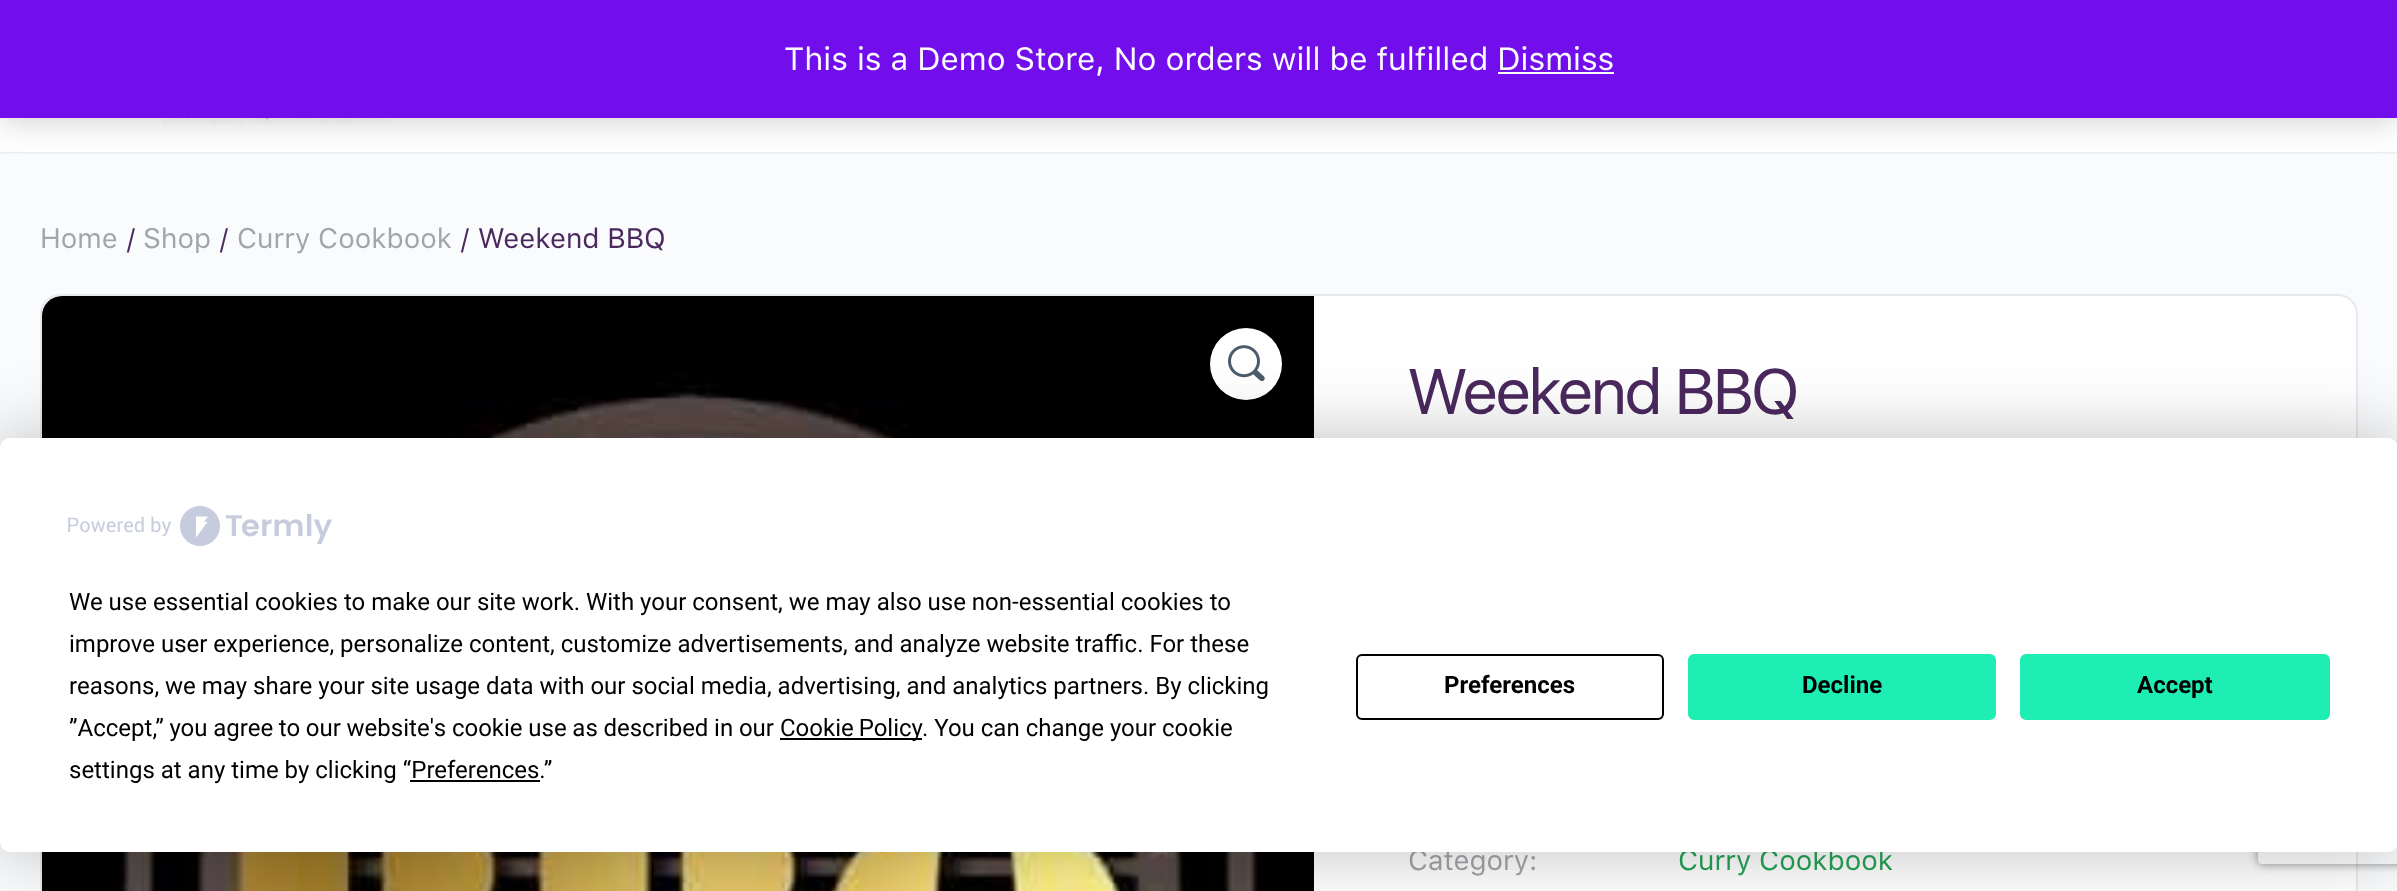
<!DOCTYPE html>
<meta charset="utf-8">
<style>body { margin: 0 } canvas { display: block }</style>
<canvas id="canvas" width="2397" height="891"></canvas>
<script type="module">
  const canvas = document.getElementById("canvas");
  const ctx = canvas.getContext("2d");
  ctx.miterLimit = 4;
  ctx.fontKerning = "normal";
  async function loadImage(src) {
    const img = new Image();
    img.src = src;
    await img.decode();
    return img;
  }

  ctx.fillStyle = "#fafbfd";
  ctx.fillRect(0, 0, 2397, 891);
  ctx.fillStyle = "rgba(65, 71, 108, 0.15)";
  ctx.filter = "blur(1px)";
  ctx.beginPath();
  ctx.rect(0, 0, 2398, 152);
  ctx.fill();
  ctx.filter = "none";
  ctx.fillStyle = "rgba(139, 141, 157, 0.05)";
  ctx.fillRect(0, 152, 2397, 2);
  ctx.fillStyle = "#ffffff";
  ctx.fillRect(0, 118, 2397, 34);
  ctx.drawImage(await loadImage("img1.png"), 40, 118, 351, 6);
  ctx.fillStyle = "rgba(0, 0, 0, 0.2)";
  ctx.filter = "blur(16px)";
  ctx.beginPath();
  ctx.rect(0, 2, 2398, 118);
  ctx.fill();
  ctx.filter = "none";
  ctx.fillStyle = "#720eec";
  ctx.fillRect(0, 0, 2397, 118);
  ctx.font = "32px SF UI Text";
  ctx.fillStyle = "#fcfbfe";
  ctx.fillText("This is a Demo Store, No orders will be fulfilled Dismiss", 784, 70);
  ctx.fillRect(1498, 72, 116, 2);
  ctx.font = "28px SF UI Text";
  ctx.fillStyle = "#a3a5a9";
  ctx.fillText("Home", 40, 248);
  ctx.fillStyle = "#4b295e";
  ctx.fillText("/", 126, 248);
  ctx.fillStyle = "#a3a5a9";
  ctx.fillText("Shop", 143, 248);
  ctx.fillStyle = "#4b295e";
  ctx.fillText("/", 219, 248);
  ctx.fillStyle = "#a3a5a9";
  ctx.fillText("Curry Cookbook", 237, 248);
  ctx.fillStyle = "#4b295e";
  ctx.fillText("/ Weekend BBQ", 460, 248);
  ctx.fillStyle = "#ffffff";
  ctx.beginPath();
  ctx.moveTo(60, 296);
  ctx.lineTo(1314, 296);
  ctx.lineTo(1314, 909);
  ctx.lineTo(60, 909);
  ctx.bezierCurveTo(50, 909, 42, 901, 42, 891);
  ctx.lineTo(42, 314);
  ctx.bezierCurveTo(42, 304, 50, 296, 60, 296);
  ctx.closePath();
  ctx.fill();
  ctx.fillStyle = "#e7e9ec";
  ctx.beginPath();
  ctx.moveTo(60, 294);
  ctx.lineTo(1314, 294);
  ctx.lineTo(1314, 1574);
  ctx.lineTo(60, 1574);
  ctx.bezierCurveTo(49, 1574, 40, 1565, 40, 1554);
  ctx.lineTo(40, 314);
  ctx.bezierCurveTo(40, 303, 49, 294, 60, 294);
  ctx.closePath();
  ctx.moveTo(60, 296);
  ctx.lineTo(1314, 296);
  ctx.lineTo(1314, 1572);
  ctx.lineTo(60, 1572);
  ctx.bezierCurveTo(50, 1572, 42, 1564, 42, 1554);
  ctx.lineTo(42, 314);
  ctx.bezierCurveTo(42, 304, 50, 296, 60, 296);
  ctx.closePath();
  ctx.fill("evenodd");
  ctx.drawImage(await loadImage("img2.png"), 42, 296, 1272, 595);
  ctx.fillStyle = "#ffffff";
  ctx.beginPath();
  ctx.arc(1246, 364, 36, 0, Math.PI * 2);
  ctx.fill();
  ctx.drawImage(await loadImage("img3.png"), 1228, 345, 37, 37);
  ctx.beginPath();
  ctx.moveTo(1314, 296);
  ctx.lineTo(2338, 296);
  ctx.bezierCurveTo(2348, 296, 2356, 304, 2356, 314);
  ctx.lineTo(2356, 891);
  ctx.bezierCurveTo(2356, 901, 2348, 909, 2338, 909);
  ctx.lineTo(1314, 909);
  ctx.closePath();
  ctx.fill();
  ctx.fillStyle = "#e7e9ec";
  ctx.beginPath();
  ctx.moveTo(1314, 294);
  ctx.lineTo(2338, 294);
  ctx.bezierCurveTo(2349, 294, 2358, 303, 2358, 314);
  ctx.lineTo(2358, 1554);
  ctx.bezierCurveTo(2358, 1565, 2349, 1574, 2338, 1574);
  ctx.lineTo(1314, 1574);
  ctx.closePath();
  ctx.moveTo(1314, 296);
  ctx.lineTo(2338, 296);
  ctx.bezierCurveTo(2348, 296, 2356, 304, 2356, 314);
  ctx.lineTo(2356, 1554);
  ctx.bezierCurveTo(2356, 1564, 2348, 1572, 2338, 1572);
  ctx.lineTo(1314, 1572);
  ctx.closePath();
  ctx.fill("evenodd");
  ctx.letterSpacing = "-1px";
  ctx.font = "64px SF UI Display";
  ctx.fillStyle = "#4b295e";
  ctx.fillText("Weekend BBQ", 1408, 414);
  ctx.letterSpacing = "0px";
  ctx.font = "28px SF UI Text";
  ctx.fillStyle = "#a3a5a9";
  ctx.fillText("Category:", 1408, 870);
  ctx.fillStyle = "#23a455";
  ctx.fillText("Curry Cookbook", 1678, 870);
  ctx.fillStyle = "rgba(0, 0, 0, 0.25)";
  ctx.filter = "blur(35px)";
  ctx.beginPath();
  ctx.roundRect(0, 438, 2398, 414, 10);
  ctx.fill();
  ctx.filter = "none";
  ctx.save();
  ctx.beginPath();
  ctx.moveTo(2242, 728);
  ctx.lineTo(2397, 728);
  ctx.lineTo(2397, 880);
  ctx.lineTo(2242, 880);
  ctx.closePath();
  ctx.moveTo(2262, 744);
  ctx.lineTo(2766, 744);
  ctx.bezierCurveTo(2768, 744, 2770, 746, 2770, 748);
  ctx.lineTo(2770, 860);
  ctx.bezierCurveTo(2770, 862, 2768, 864, 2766, 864);
  ctx.lineTo(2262, 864);
  ctx.bezierCurveTo(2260, 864, 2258, 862, 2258, 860);
  ctx.lineTo(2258, 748);
  ctx.bezierCurveTo(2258, 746, 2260, 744, 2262, 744);
  ctx.closePath();
  ctx.clip("evenodd");
  ctx.fillStyle = "#808080";
  ctx.filter = "blur(5px)";
  ctx.beginPath();
  ctx.roundRect(2258, 744, 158, 120, 4);
  ctx.fill();
  ctx.filter = "none";
  ctx.restore();
  ctx.fillStyle = "#ffffff";
  ctx.beginPath();
  ctx.roundRect(0, 438, 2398, 414, 10);
  ctx.fill();
  ctx.drawImage(await loadImage("img4.png"), 68, 506, 264, 40);
  ctx.font = "24px Roboto";
  ctx.fillStyle = "#000000";
  ctx.fillText("We use essential cookies to make our site work. With your consent, we may also use non-essential cookies to", 69, 610);
  ctx.fillText("improve user experience, personalize content, customize advertisements, and analyze website traffic. For these", 69, 652);
  ctx.fillText("reasons, we may share your site usage data with our social media, advertising, and analytics partners. By clicking", 69, 694);
  ctx.wordSpacing = "-0.25px";
  ctx.fillText("”Accept,” you agree to our website's cookie use as described in our", 69, 736);
  ctx.fillRect(780, 738, 142, 2);
  ctx.wordSpacing = "-1px";
  ctx.fillText("Cookie Policy", 780, 736);
  ctx.wordSpacing = "0px";
  ctx.fillText(". You can change your cookie", 922, 736);
  ctx.fillText("settings at any time by clicking “Preferences.”", 69, 778);
  ctx.fillRect(410, 780, 130, 2);
  ctx.beginPath();
  ctx.roundRect(1357, 655, 306, 64, 5);
  ctx.strokeStyle = "#000000";
  ctx.lineWidth = 2;
  ctx.stroke();
  ctx.font = "bold 24px Roboto";
  ctx.fillText("Preferences", 1444, 693);
  ctx.fillStyle = "#1feeb4";
  ctx.beginPath();
  ctx.roundRect(1689, 655, 306, 64, 5);
  ctx.fill();
  ctx.strokeStyle = "#1feeb4";
  ctx.stroke();
  ctx.fillStyle = "#000000";
  ctx.fillText("Decline", 1802, 693);
  ctx.fillStyle = "#1feeb4";
  ctx.beginPath();
  ctx.roundRect(2021, 655, 308, 64, 5);
  ctx.fill();
  ctx.stroke();
  ctx.fillStyle = "#000000";
  ctx.fillText("Accept", 2137, 693);
</script>
